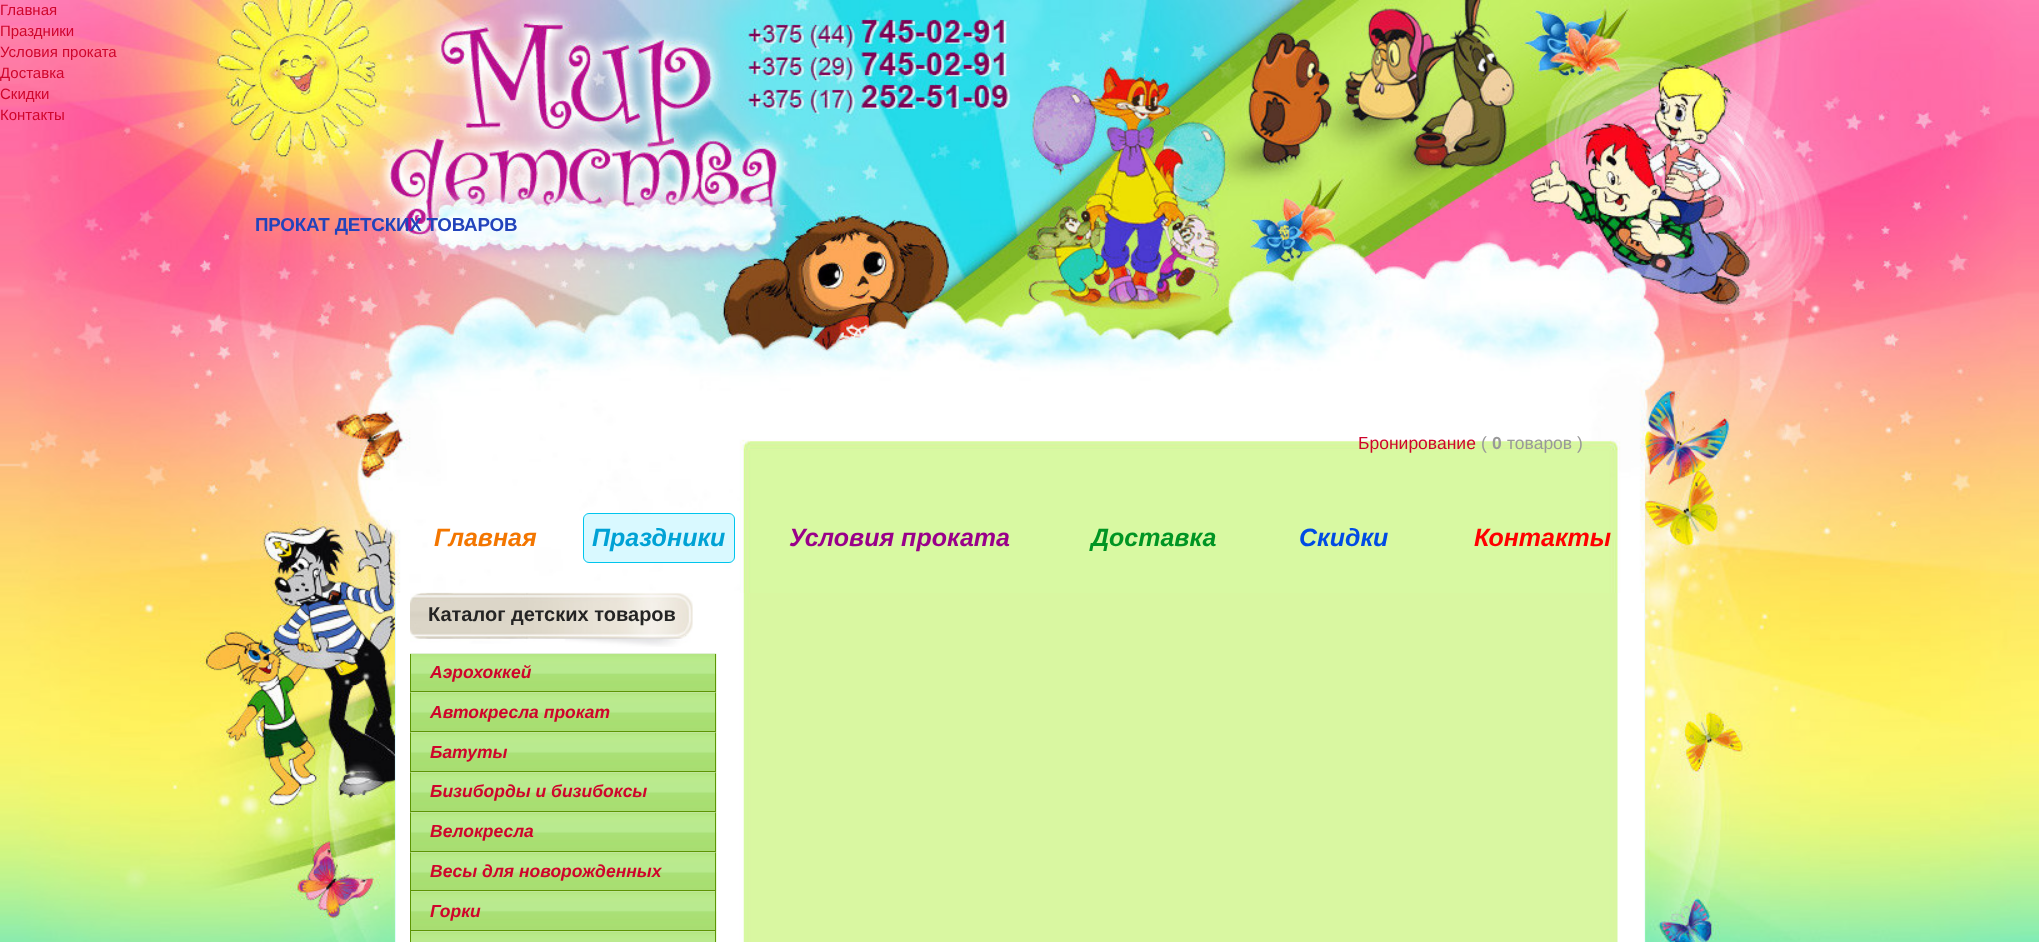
<!DOCTYPE html>
<meta charset="utf-8">
<style>body { margin: 0 } canvas { display: block }</style>
<canvas id="canvas" width="2039" height="942"></canvas>
<script type="module">
  const canvas = document.getElementById("canvas");
  const ctx = canvas.getContext("2d");
  ctx.miterLimit = 4;
  ctx.fontKerning = "normal";
  async function loadImage(src) {
    const img = new Image();
    img.src = src;
    await img.decode();
    return img;
  }

  ctx.fillStyle = "#ffffff";
  ctx.fillRect(0, 0, 2039, 942);
  ctx.drawImage(await loadImage("img1.png"), 0, 0, 2039, 942);
  ctx.font = "15px Liberation Sans";
  ctx.fillStyle = "#cf052b";
  ctx.fillText("Главная", 0, 15);
  ctx.fillText("Праздники", 0, 36);
  ctx.fillText("Условия проката", 0, 57);
  ctx.fillText("Доставка", 0, 78);
  ctx.fillText("Скидки", 0, 99);
  ctx.fillText("Контакты", 0, 120);
  ctx.letterSpacing = "-0.2px";
  ctx.font = "bold 18.75px Liberation Sans";
  ctx.fillStyle = "#2243bb";
  ctx.fillText("ПРОКАТ ДЕТСКИХ ТОВАРОВ", 255, 231);
  ctx.letterSpacing = "0px";
  ctx.font = "17.5px Liberation Sans";
  ctx.fillStyle = "#cf052b";
  ctx.fillText("Бронирование", 1358, 449);
  ctx.fillStyle = "#999999";
  ctx.fillText("(", 1481, 449);
  ctx.font = "bold 17.5px Liberation Sans";
  ctx.fillText("0", 1492, 449);
  ctx.font = "17.5px Liberation Sans";
  ctx.fillText("товаров )", 1507, 449);
  ctx.font = "italic bold 25px Liberation Sans";
  ctx.fillStyle = "#f37600";
  ctx.fillText("Главная", 434, 546);
  ctx.fillStyle = "#d9f9ff";
  ctx.beginPath();
  ctx.roundRect(583.5, 513.5, 151, 49, 5.5);
  ctx.fill();
  ctx.strokeStyle = "#00c5ed";
  ctx.stroke();
  ctx.fillStyle = "#00a2d5";
  ctx.fillText("Праздники", 592, 546);
  ctx.fillStyle = "#99008a";
  ctx.fillText("Условия проката", 789, 546);
  ctx.fillStyle = "#009523";
  ctx.fillText("Доставка", 1091, 546);
  ctx.fillStyle = "#004be4";
  ctx.fillText("Скидки", 1299, 546);
  ctx.fillStyle = "#ff0000";
  ctx.fillText("Контакты", 1474, 546);
  ctx.drawImage(await loadImage("img2.png"), 395, 593, 1250, 349);
  ctx.drawImage(await loadImage("img3.png"), 410, 592, 283, 55);
  ctx.font = "bold 20px Liberation Sans";
  ctx.fillStyle = "#242424";
  ctx.fillText("Каталог детских товаров", 428, 621);
  ctx.fillStyle = "#f3f3f3";
  ctx.fillRect(410, 653, 306, 279);
  ctx.drawImage(await loadImage("img4.png"), 410, 653, 307, 40);
  ctx.fillStyle = "#5d9504";
  ctx.fillRect(715, 654, 1, 39);
  ctx.fillRect(410, 691, 306, 1);
  ctx.fillRect(410, 654, 1, 39);
  ctx.font = "italic bold 17.5px Liberation Sans";
  ctx.fillStyle = "#cf052b";
  ctx.fillText("Аэрохоккей", 430, 678);
  ctx.drawImage(await loadImage("img5.png"), 410, 692, 307, 41);
  ctx.fillStyle = "#5d9504";
  ctx.fillRect(715, 693, 1, 40);
  ctx.fillRect(410, 731, 306, 1);
  ctx.fillRect(410, 693, 1, 40);
  ctx.fillStyle = "#cf052b";
  ctx.fillText("Автокресла прокат", 430, 718);
  ctx.drawImage(await loadImage("img6.png"), 410, 732, 307, 41);
  ctx.fillStyle = "#5d9504";
  ctx.fillRect(715, 733, 1, 40);
  ctx.fillRect(410, 771, 306, 1);
  ctx.fillRect(410, 733, 1, 40);
  ctx.fillStyle = "#cf052b";
  ctx.fillText("Батуты", 430, 758);
  ctx.drawImage(await loadImage("img7.png"), 410, 772, 307, 41);
  ctx.fillStyle = "#5d9504";
  ctx.fillRect(715, 773, 1, 40);
  ctx.fillRect(410, 811, 306, 1);
  ctx.fillRect(410, 773, 1, 40);
  ctx.fillStyle = "#cf052b";
  ctx.fillText("Бизиборды и бизибоксы", 430, 797);
  ctx.drawImage(await loadImage("img8.png"), 410, 812, 307, 41);
  ctx.fillStyle = "#5d9504";
  ctx.fillRect(715, 813, 1, 40);
  ctx.fillRect(410, 851, 306, 1);
  ctx.fillRect(410, 813, 1, 40);
  ctx.fillStyle = "#cf052b";
  ctx.fillText("Велокресла", 430, 837);
  ctx.drawImage(await loadImage("img9.png"), 410, 852, 307, 40);
  ctx.fillStyle = "#5d9504";
  ctx.fillRect(715, 853, 1, 38);
  ctx.fillRect(410, 890, 306, 1);
  ctx.fillRect(410, 853, 1, 38);
  ctx.fillStyle = "#cf052b";
  ctx.fillText("Весы для новорожденных", 430, 877);
  ctx.drawImage(await loadImage("img10.png"), 411, 891, 306, 41);
  ctx.fillStyle = "#5d9504";
  ctx.fillRect(715, 891, 1, 40);
  ctx.fillRect(410, 930, 306, 1);
  ctx.fillRect(410, 891, 1, 51);
  ctx.fillStyle = "#cf052b";
  ctx.fillText("Горки", 430, 917);
  ctx.drawImage(await loadImage("img11.png"), 411, 931, 306, 11);
  ctx.fillStyle = "#5d9504";
  ctx.fillRect(715, 931, 1, 11);
</script>
